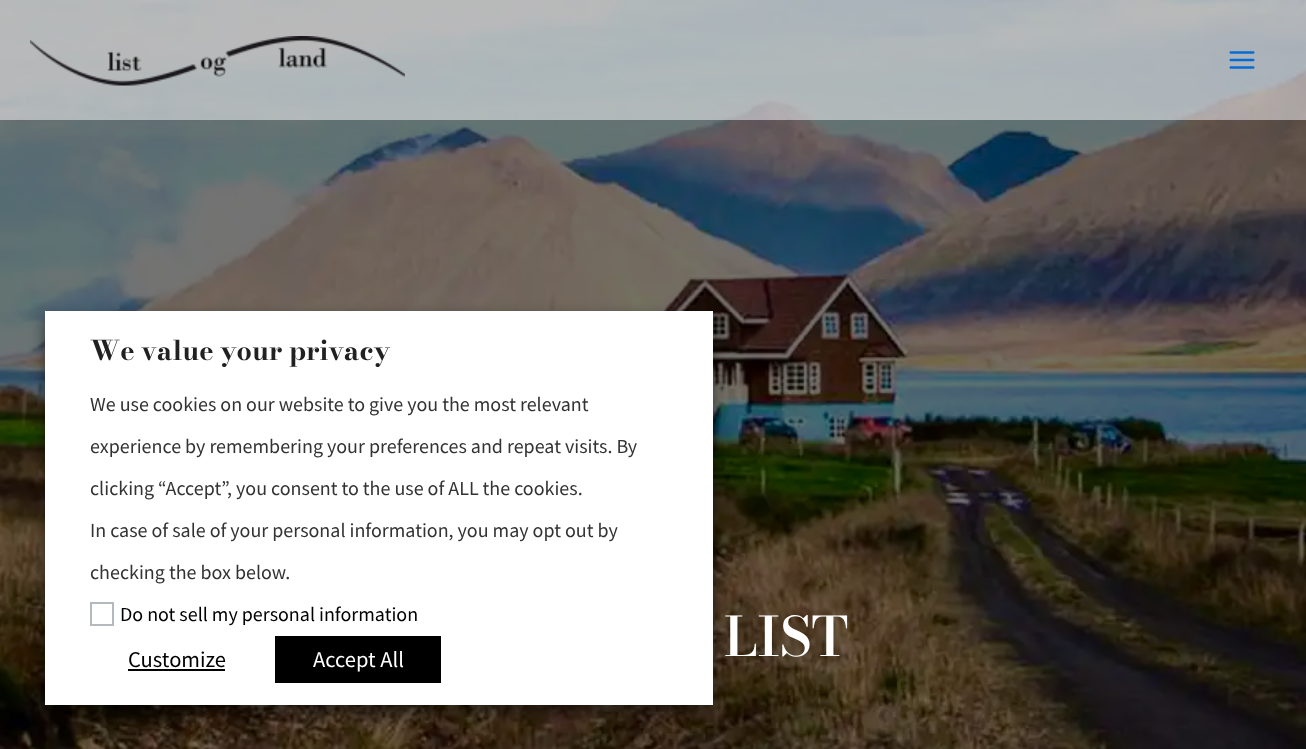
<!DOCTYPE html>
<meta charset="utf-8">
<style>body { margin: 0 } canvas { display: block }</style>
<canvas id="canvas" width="1306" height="749"></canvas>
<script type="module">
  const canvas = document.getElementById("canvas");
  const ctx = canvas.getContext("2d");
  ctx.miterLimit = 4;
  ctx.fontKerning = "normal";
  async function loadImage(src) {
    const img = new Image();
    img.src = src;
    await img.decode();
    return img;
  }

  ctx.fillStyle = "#ffffff";
  ctx.fillRect(0, 0, 1306, 749);
  ctx.drawImage(await loadImage("img3.png"), 0, 0, 1306, 749);
  ctx.fillStyle = "rgba(0, 0, 0, 0.5)";
  ctx.filter = "blur(7.5px)";
  ctx.beginPath();
  ctx.rect(45, 318, 668, 395);
  ctx.fill();
  ctx.filter = "none";
  ctx.fillStyle = "#ffffff";
  ctx.fillRect(45, 311, 668, 394);
  ctx.font = "bold 27px Bodoni Moda";
  ctx.fillStyle = "#212121";
  ctx.fillText("We value your privacy", 90, 360);
  ctx.font = "20px Source Sans Pro";
  ctx.fillStyle = "#333333";
  ctx.fillText("We use cookies on our website to give you the most relevant", 90, 411);
  ctx.fillText("experience by remembering your preferences and repeat visits. By", 90, 453);
  ctx.fillText("clicking “Accept”, you consent to the use of ALL the cookies.", 90, 495);
  ctx.fillText("In case of sale of your personal information, you may opt out by", 90, 537);
  ctx.fillText("checking the box below.", 90, 579);
  ctx.strokeStyle = "#b4b9be";
  ctx.lineWidth = 2;
  ctx.strokeRect(91, 603, 22, 22);
  ctx.fillStyle = "#000000";
  ctx.fillText("Do not sell my personal information", 120, 621);
  ctx.font = "22.5px Source Sans Pro";
  ctx.fillText("Customize", 128, 667);
  ctx.fillRect(128, 669, 97, 2);
  ctx.fillRect(275, 636, 166, 47);
  ctx.fillStyle = "#ffffff";
  ctx.fillText("Accept All", 313, 667);
  ctx.fillStyle = "rgba(249, 250, 251, 0.52)";
  ctx.fillRect(0, 0, 1306, 120);
  ctx.drawImage(await loadImage("img1.png"), 30, 36, 375, 50);
  ctx.drawImage(await loadImage("img2.png"), 1229, 51, 26, 18);
  ctx.font = "600 54px Bodoni Moda";
  ctx.fillStyle = "#ffffff";
  ctx.fillText("LIST", 724, 656);
</script>
